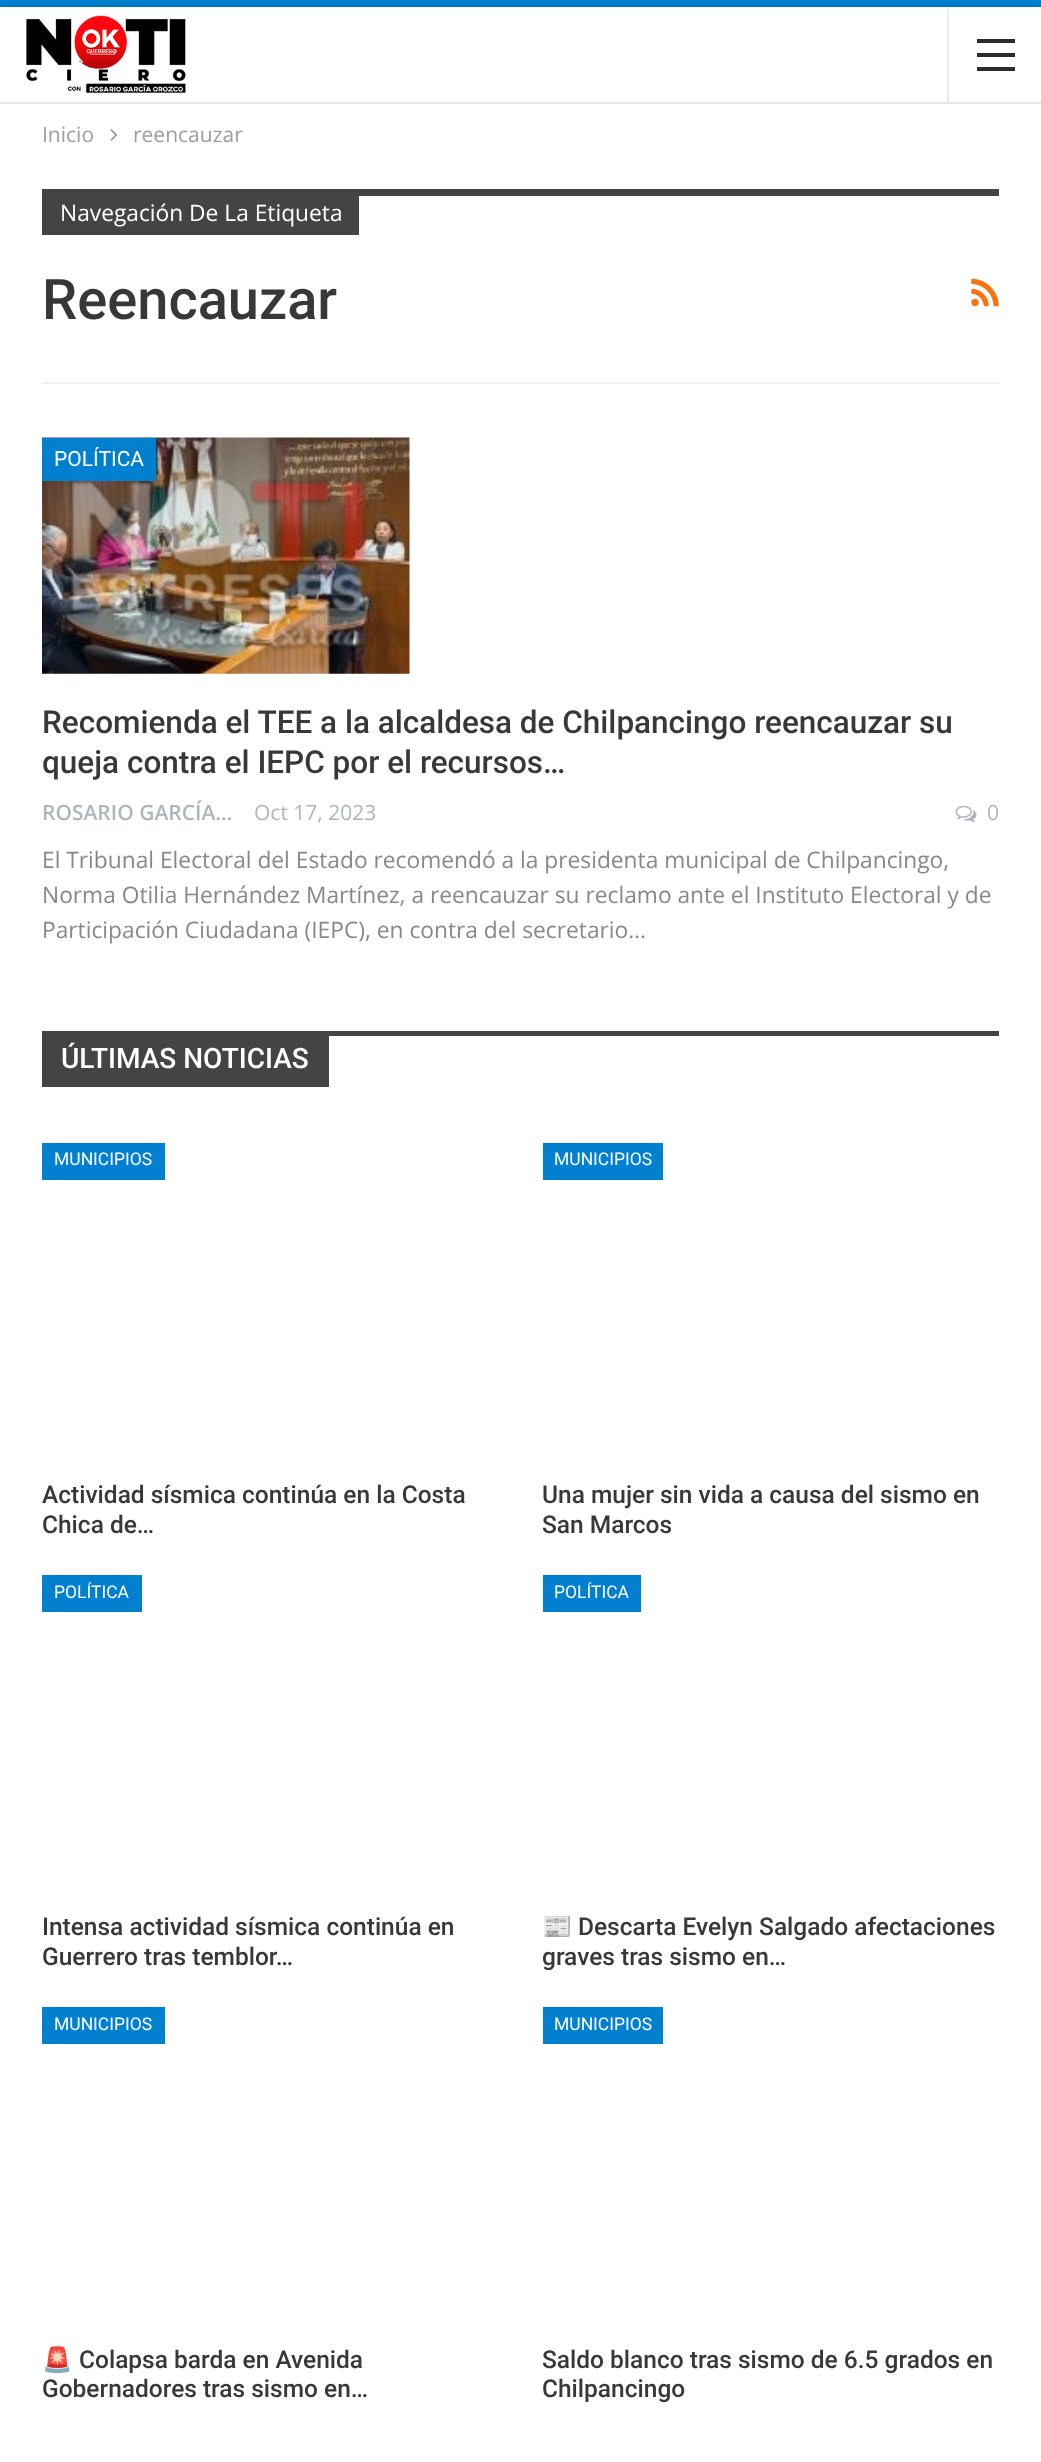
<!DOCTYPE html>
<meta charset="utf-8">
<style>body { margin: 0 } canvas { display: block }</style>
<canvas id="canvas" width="1041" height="2462"></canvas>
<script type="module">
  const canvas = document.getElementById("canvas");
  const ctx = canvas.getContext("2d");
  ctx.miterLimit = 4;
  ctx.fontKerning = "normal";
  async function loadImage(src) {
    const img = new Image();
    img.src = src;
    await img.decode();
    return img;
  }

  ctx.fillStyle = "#0080ce";
  ctx.fillRect(0, 0, 1041, 2462);
  ctx.fillStyle = "rgba(0, 0, 0, 0.27)";
  ctx.filter = "blur(2px)";
  ctx.beginPath();
  ctx.rect(0, 7, 1041, 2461);
  ctx.fill();
  ctx.filter = "none";
  ctx.fillStyle = "#ffffff";
  ctx.fillRect(0, 7, 1041, 2455);
  ctx.fillStyle = "#e5e5e5";
  ctx.fillRect(0, 102, 1041, 2);
  ctx.drawImage(await loadImage("img1.png"), 26, 15, 160, 78);
  ctx.fillStyle = "#ededed";
  ctx.fillRect(947, 7, 2, 95);
  ctx.fillStyle = "#2c2c2c";
  ctx.fillRect(977, 53, 38, 4);
  ctx.fillRect(977, 39, 38, 4);
  ctx.fillRect(977, 67, 38, 4);
  ctx.font = "21px Open Sans";
  ctx.fillStyle = "#9e9e9e";
  ctx.fillText("Inicio", 42, 142);
  ctx.drawImage(await loadImage("img2.png"), 110, 129, 8, 12);
  ctx.fillText("reencauzar", 133, 142);
  ctx.fillStyle = "#f0f0f0";
  ctx.fillRect(42, 382, 957, 2);
  ctx.fillStyle = "#444444";
  ctx.fillRect(359, 189, 640, 7);
  ctx.fillRect(42, 189, 317, 46);
  ctx.font = "22.75px Open Sans";
  ctx.fillStyle = "#ffffff";
  ctx.fillText("Navegación De La Etiqueta", 60, 221);
  ctx.font = "500 56px Roboto";
  ctx.fillStyle = "#383838";
  ctx.fillText("Reencauzar", 42, 319);
  ctx.drawImage(await loadImage("img3.png"), 971, 278, 28, 29);
  ctx.drawImage(await loadImage("img4.png"), 42, 437, 368, 237);
  ctx.fillStyle = "#0080ce";
  ctx.fillRect(42, 438, 114, 43);
  ctx.font = "21px Roboto";
  ctx.fillStyle = "#ffffff";
  ctx.fillText("POLÍTICA", 54, 466);
  ctx.font = "500 31.5px Roboto";
  ctx.fillStyle = "#383838";
  ctx.fillText("Recomienda el TEE a la alcaldesa de Chilpancingo reencauzar su", 42, 733);
  ctx.fillText("queja contra el IEPC por el recursos…", 42, 773);
  ctx.font = "600 21px Open Sans";
  ctx.fillStyle = "#adb5bd";
  ctx.fillText("ROSARIO GARCÍA…", 42, 820);
  ctx.font = "21px Open Sans";
  ctx.fillText("Oct 17, 2023", 254, 820);
  ctx.drawImage(await loadImage("img5.png"), 955, 805, 22, 18);
  ctx.fillText("0", 987, 820);
  ctx.font = "22.75px Open Sans";
  ctx.fillStyle = "#888888";
  ctx.fillText("El Tribunal Electoral del Estado recomendó a la presidenta municipal de Chilpancingo,", 42, 868);
  ctx.fillText("Norma Otilia Hernández Martínez, a reencauzar su reclamo ante el Instituto Electoral y de", 42, 903);
  ctx.fillText("Participación Ciudadana (IEPC), en contra del secretario…", 42, 938);
  ctx.fillStyle = "#444444";
  ctx.fillRect(329, 1031, 670, 5);
  ctx.fillRect(42, 1031, 287, 56);
  ctx.font = "500 28px Roboto";
  ctx.fillStyle = "#ffffff";
  ctx.fillText("ÚLTIMAS NOTICIAS", 61, 1068);
  ctx.fillStyle = "#0080ce";
  ctx.fillRect(42, 1143, 123, 37);
  ctx.font = "17.5px Roboto";
  ctx.fillStyle = "#ffffff";
  ctx.fillText("MUNICIPIOS", 54, 1165);
  ctx.font = "500 24.5px Roboto";
  ctx.fillStyle = "#383838";
  ctx.fillText("Actividad sísmica continúa en la Costa", 42, 1503);
  ctx.fillText("Chica de…", 42, 1533);
  ctx.fillStyle = "#0080ce";
  ctx.fillRect(543, 1143, 120, 37);
  ctx.font = "17.5px Roboto";
  ctx.fillStyle = "#ffffff";
  ctx.fillText("MUNICIPIOS", 554, 1165);
  ctx.font = "500 24.5px Roboto";
  ctx.fillStyle = "#383838";
  ctx.fillText("Una mujer sin vida a causa del sismo en", 542, 1503);
  ctx.fillText("San Marcos", 542, 1533);
  ctx.fillStyle = "#0080ce";
  ctx.fillRect(42, 1575, 100, 37);
  ctx.font = "17.5px Roboto";
  ctx.fillStyle = "#ffffff";
  ctx.fillText("POLÍTICA", 54, 1598);
  ctx.font = "500 24.5px Roboto";
  ctx.fillStyle = "#383838";
  ctx.fillText("Intensa actividad sísmica continúa en", 42, 1935);
  ctx.fillText("Guerrero tras temblor…", 42, 1965);
  ctx.fillStyle = "#0080ce";
  ctx.fillRect(543, 1575, 98, 37);
  ctx.font = "17.5px Roboto";
  ctx.fillStyle = "#ffffff";
  ctx.fillText("POLÍTICA", 554, 1598);
  ctx.font = "24.5px Noto Color Emoji";
  ctx.fillStyle = "#383838";
  ctx.fillText("📰", 542, 1935);
  ctx.font = "500 24.5px Roboto";
  ctx.fillText("Descarta Evelyn Salgado afectaciones", 578, 1935);
  ctx.fillText("graves tras sismo en…", 542, 1965);
  ctx.fillStyle = "#0080ce";
  ctx.fillRect(42, 2007, 123, 37);
  ctx.font = "17.5px Roboto";
  ctx.fillStyle = "#ffffff";
  ctx.fillText("MUNICIPIOS", 54, 2030);
  ctx.font = "24.5px Noto Color Emoji";
  ctx.fillStyle = "#383838";
  ctx.fillText("🚨", 42, 2368);
  ctx.font = "500 24.5px Roboto";
  ctx.fillText("Colapsa barda en Avenida", 79, 2368);
  ctx.fillText("Gobernadores tras sismo en…", 42, 2397);
  ctx.fillStyle = "#0080ce";
  ctx.fillRect(543, 2007, 120, 37);
  ctx.font = "17.5px Roboto";
  ctx.fillStyle = "#ffffff";
  ctx.fillText("MUNICIPIOS", 554, 2030);
  ctx.font = "500 24.5px Roboto";
  ctx.fillStyle = "#383838";
  ctx.fillText("Saldo blanco tras sismo de 6.5 grados en", 542, 2368);
  ctx.fillText("Chilpancingo", 542, 2397);
</script>
